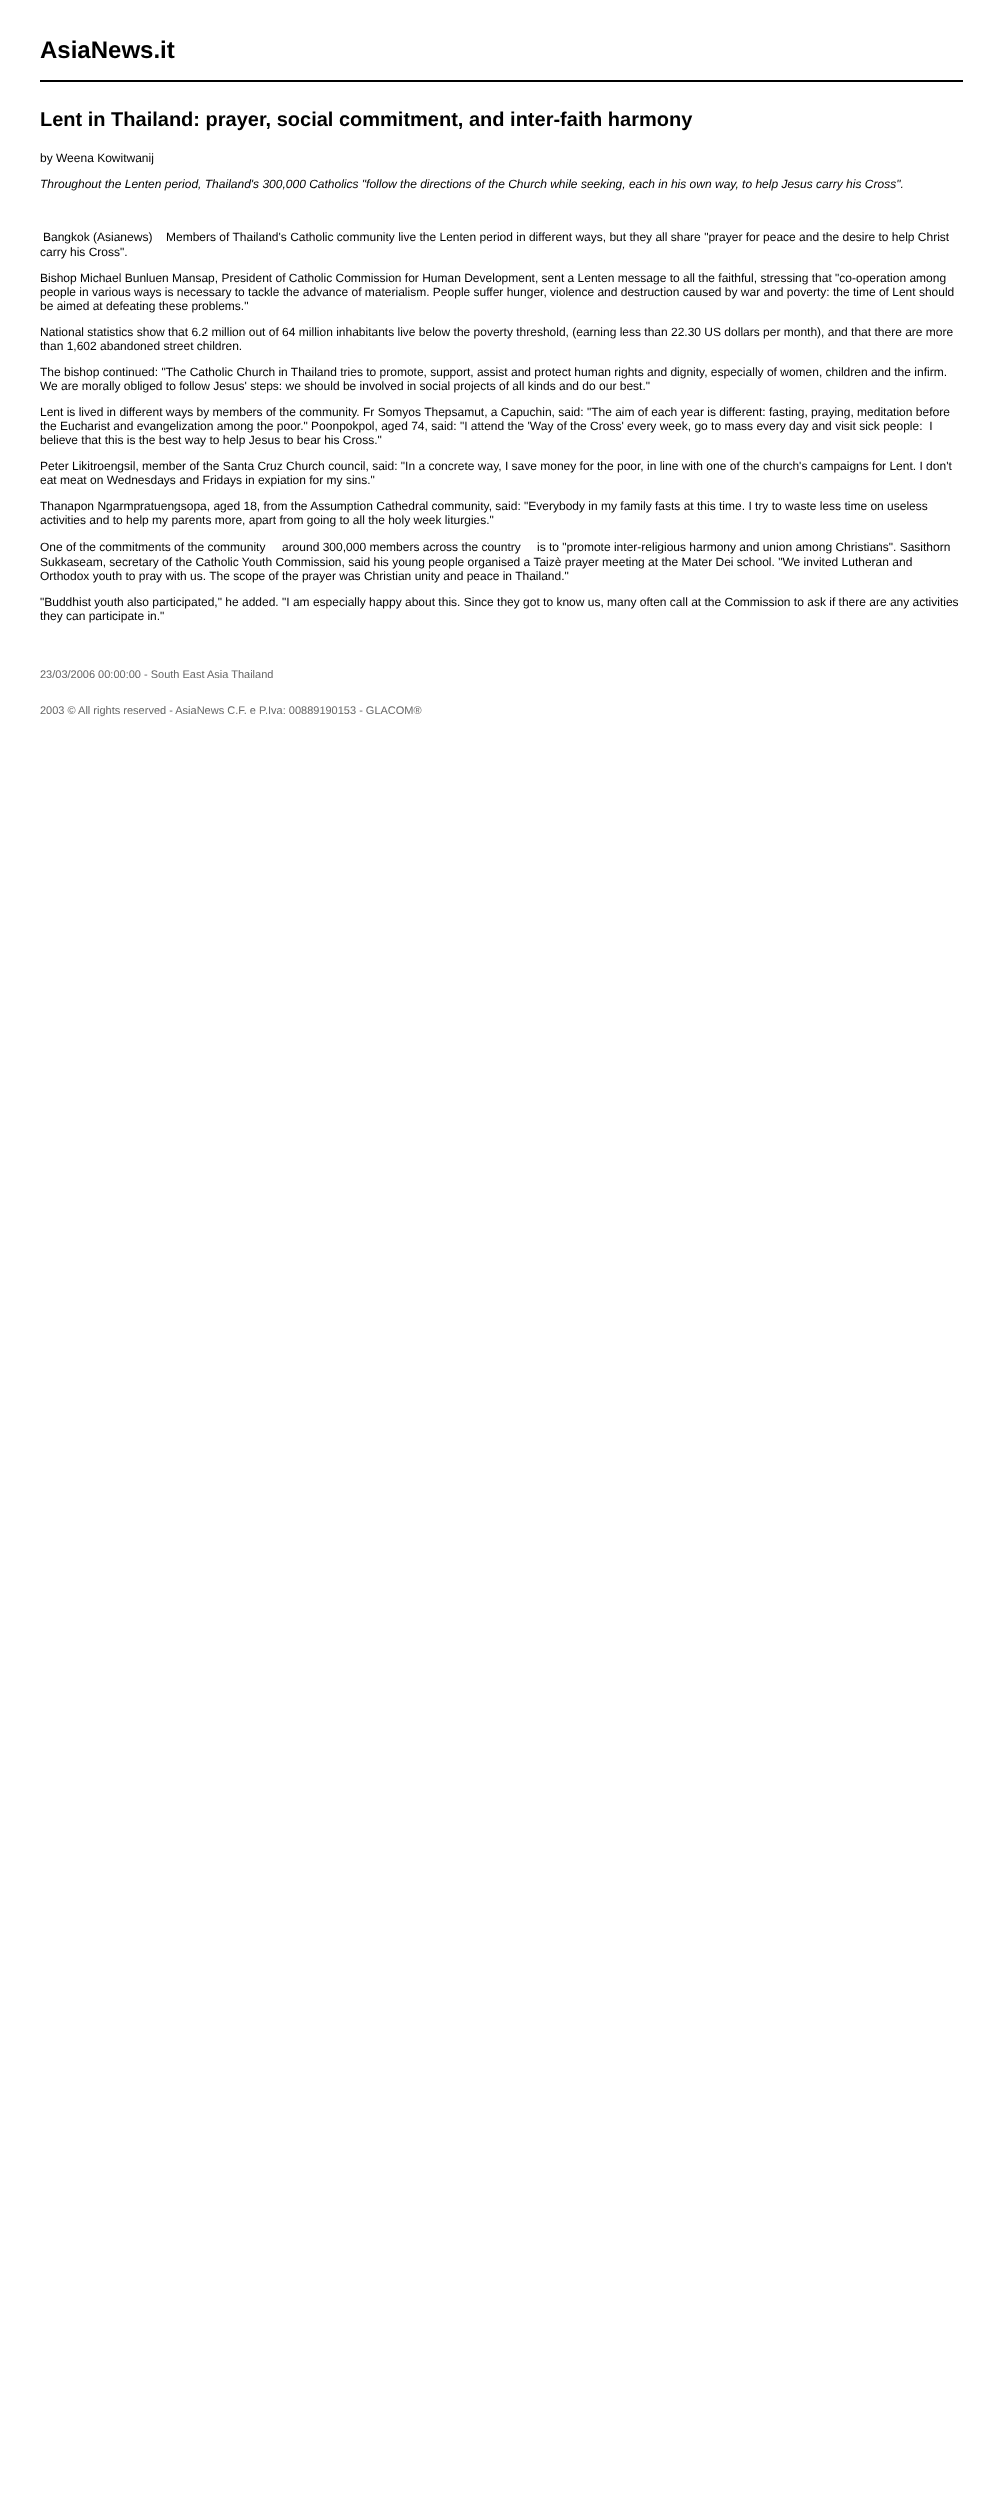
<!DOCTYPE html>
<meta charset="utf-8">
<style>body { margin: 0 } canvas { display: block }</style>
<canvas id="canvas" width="1003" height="2503"></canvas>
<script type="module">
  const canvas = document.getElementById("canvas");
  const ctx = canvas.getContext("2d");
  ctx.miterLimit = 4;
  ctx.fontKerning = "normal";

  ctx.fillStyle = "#ffffff";
  ctx.fillRect(0, 0, 1003, 2503);
  ctx.font = "bold 24px Liberation Sans";
  ctx.fillStyle = "#000000";
  ctx.fillText("AsiaNews.it", 40, 58);
  ctx.fillRect(40, 80, 923, 2);
  ctx.font = "bold 20px Liberation Sans";
  ctx.fillText("Lent in Thailand: prayer, social commitment, and inter-faith harmony", 40, 126);
  ctx.font = "12px Liberation Sans";
  ctx.fillText("by Weena Kowitwanij", 40, 162);
  ctx.font = "italic 12px Liberation Sans";
  ctx.fillText("Throughout the Lenten period, Thailand's 300,000 Catholics \"follow the directions of the Church while seeking, each in his own way, to help Jesus carry his Cross\".", 40, 188);
  ctx.font = "12px Liberation Sans";
  ctx.fillText("Bangkok (Asianews)", 43, 241);
  ctx.fillText("Members of Thailand's Catholic community live the Lenten period in different ways, but they all share \"prayer for peace and the desire to help Christ", 166, 241);
  ctx.fillText("carry his Cross\".", 40, 256);
  ctx.fillText("Bishop Michael Bunluen Mansap, President of Catholic Commission for Human Development, sent a Lenten message to all the faithful, stressing that \"co-operation among", 40, 282);
  ctx.fillText("people in various ways is necessary to tackle the advance of materialism. People suffer hunger, violence and destruction caused by war and poverty: the time of Lent should", 40, 296);
  ctx.fillText("be aimed at defeating these problems.\"", 40, 310);
  ctx.fillText("National statistics show that 6.2 million out of 64 million inhabitants live below the poverty threshold, (earning less than 22.30 US dollars per month), and that there are more", 40, 336);
  ctx.fillText("than 1,602 abandoned street children.", 40, 350);
  ctx.fillText("The bishop continued: \"The Catholic Church in Thailand tries to promote, support, assist and protect human rights and dignity, especially of women, children and the infirm.", 40, 376);
  ctx.fillText("We are morally obliged to follow Jesus' steps: we should be involved in social projects of all kinds and do our best.\"", 40, 390);
  ctx.fillText("Lent is lived in different ways by members of the community. Fr Somyos Thepsamut, a Capuchin, said: \"The aim of each year is different: fasting, praying, meditation before", 40, 416);
  ctx.fillText("the Eucharist and evangelization among the poor.\" Poonpokpol, aged 74, said: \"I attend the 'Way of the Cross' every week, go to mass every day and visit sick people:  I", 40, 430);
  ctx.fillText("believe that this is the best way to help Jesus to bear his Cross.\"", 40, 444);
  ctx.fillText("Peter Likitroengsil, member of the Santa Cruz Church council, said: \"In a concrete way, I save money for the poor, in line with one of the church's campaigns for Lent. I don't", 40, 470);
  ctx.fillText("eat meat on Wednesdays and Fridays in expiation for my sins.\"", 40, 484);
  ctx.fillText("Thanapon Ngarmpratuengsopa, aged 18, from the Assumption Cathedral community, said: \"Everybody in my family fasts at this time. I try to waste less time on useless", 40, 510);
  ctx.fillText("activities and to help my parents more, apart from going to all the holy week liturgies.\"", 40, 524);
  ctx.fillText("One of the commitments of the community", 40, 551);
  ctx.fillText("around 300,000 members across the country", 282, 551);
  ctx.fillText("is to \"promote inter-religious harmony and union among Christians\". Sasithorn", 537, 551);
  ctx.fillText("Sukkaseam, secretary of the Catholic Youth Commission, said his young people organised a Taizè prayer meeting at the Mater Dei school. \"We invited Lutheran and", 40, 566);
  ctx.fillText("Orthodox youth to pray with us. The scope of the prayer was Christian unity and peace in Thailand.\"", 40, 580);
  ctx.fillText("\"Buddhist youth also participated,\" he added. \"I am especially happy about this. Since they got to know us, many often call at the Commission to ask if there are any activities", 40, 606);
  ctx.fillText("they can participate in.\"", 40, 620);
  ctx.font = "11px Liberation Sans";
  ctx.fillStyle = "#666666";
  ctx.fillText("23/03/2006 00:00:00 - South East Asia Thailand", 40, 678);
  ctx.fillText("2003 © All rights reserved - AsiaNews C.F. e P.Iva: 00889190153 - GLACOM®", 40, 714);
</script>
